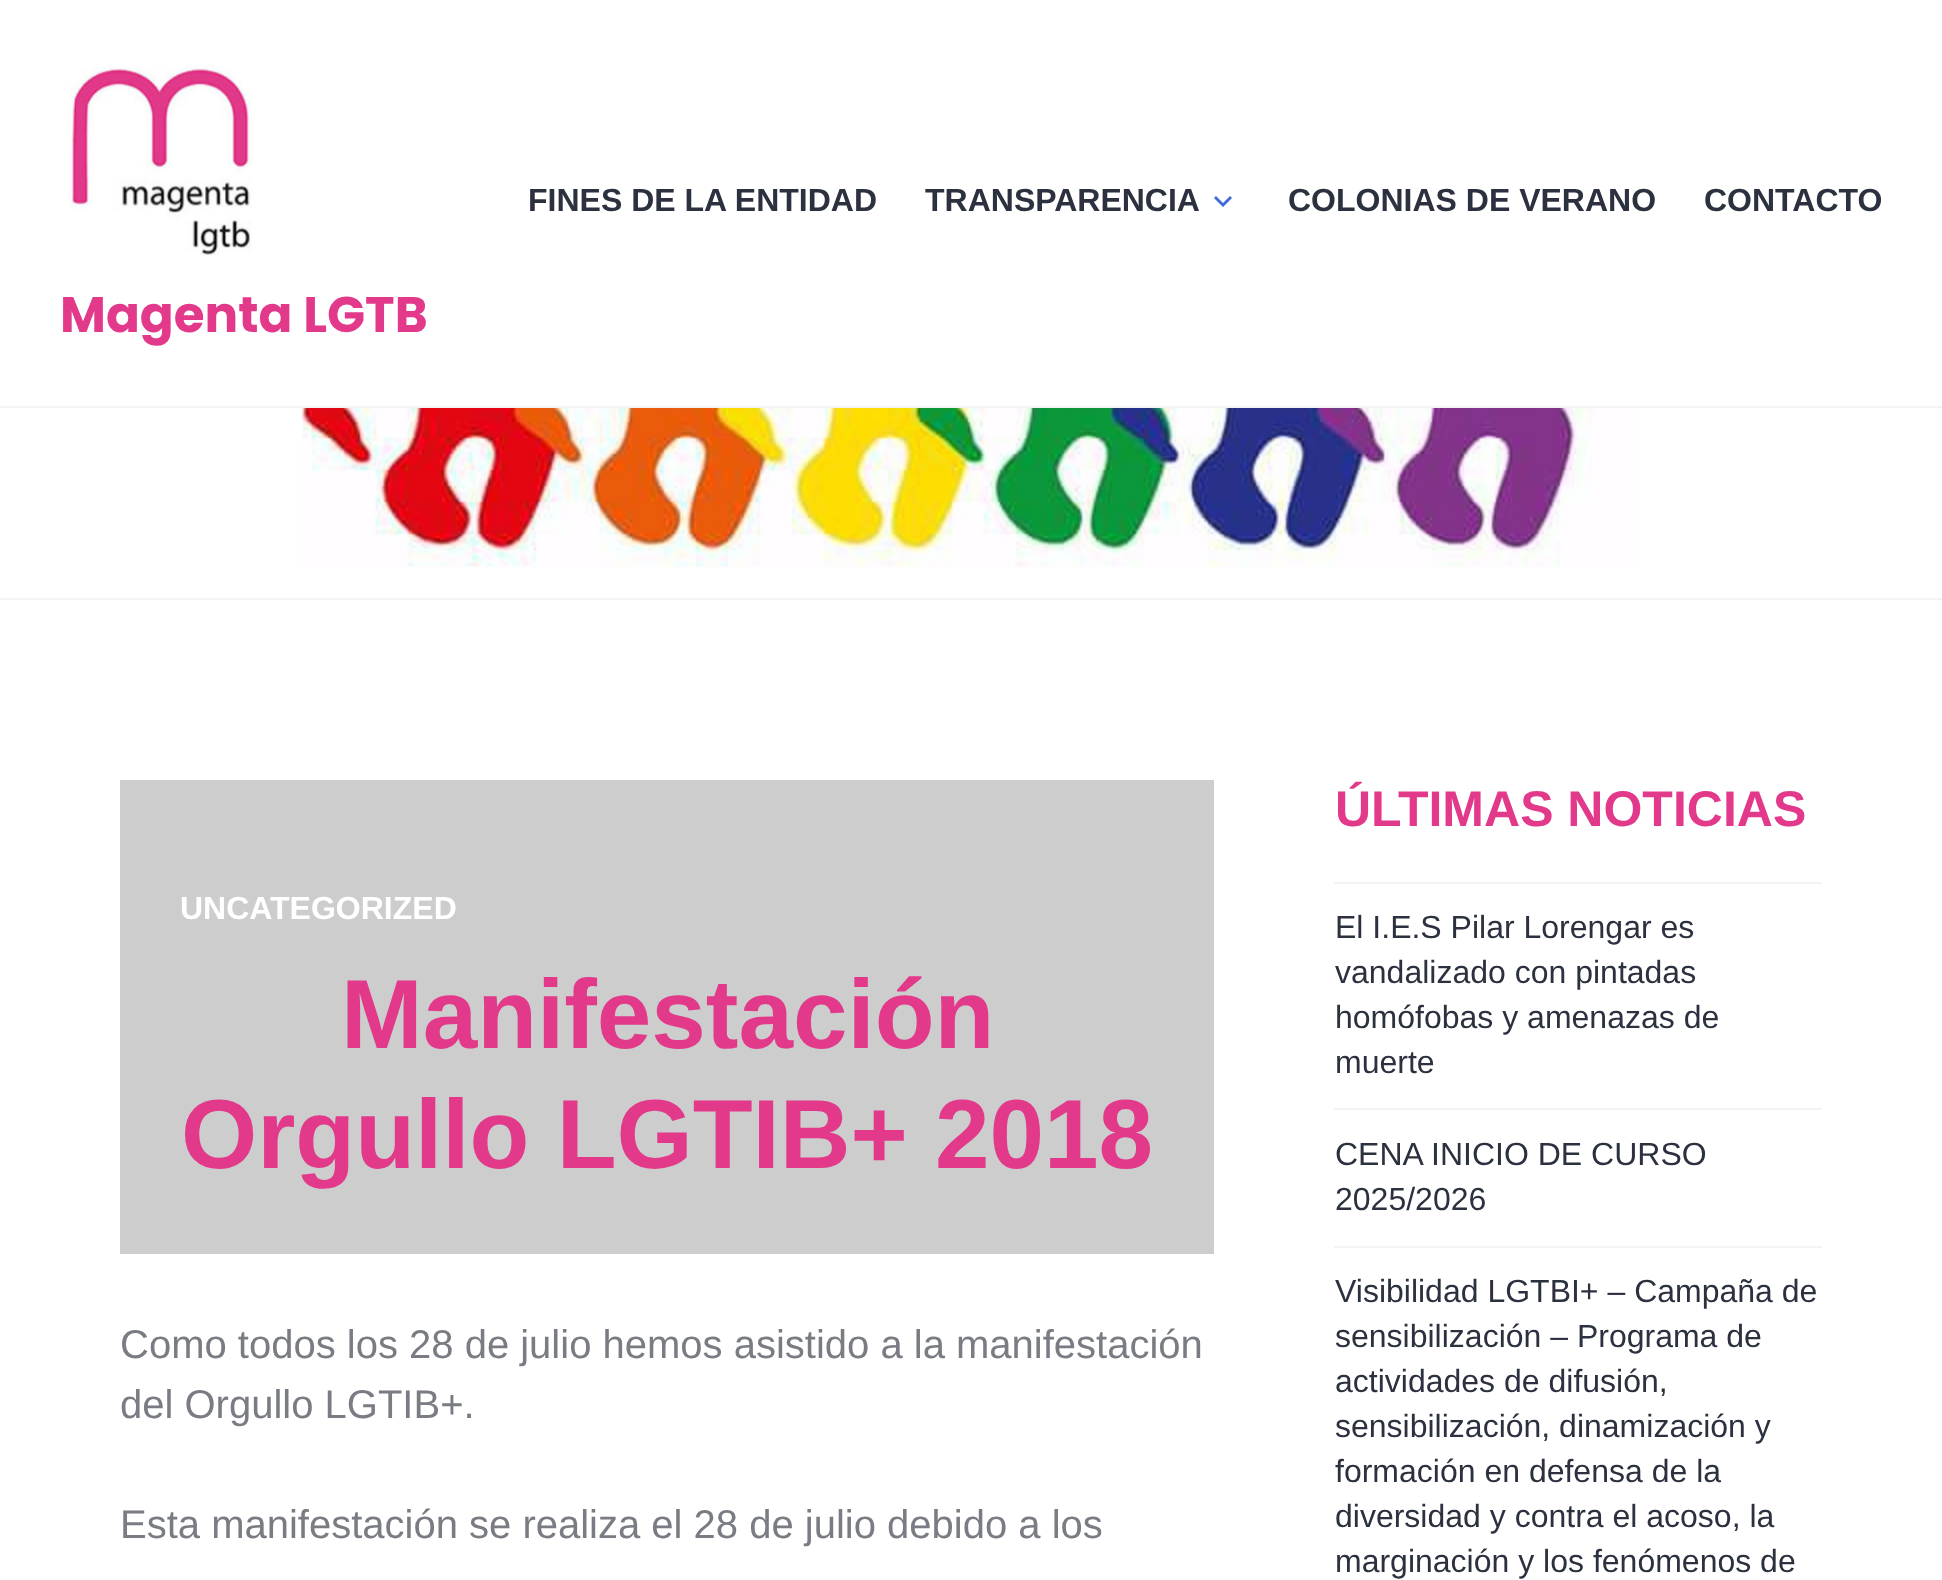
<!DOCTYPE html>
<meta charset="utf-8">
<style>body { margin: 0 } canvas { display: block }</style>
<canvas id="canvas" width="1942" height="1580"></canvas>
<script type="module">
  const canvas = document.getElementById("canvas");
  const ctx = canvas.getContext("2d");
  ctx.miterLimit = 4;
  ctx.fontKerning = "normal";
  async function loadImage(src) {
    const img = new Image();
    img.src = src;
    await img.decode();
    return img;
  }

  ctx.fillStyle = "#ffffff";
  ctx.fillRect(0, 0, 1942, 1580);
  ctx.fillStyle = "#f3f3f3";
  ctx.fillRect(0, 406, 1942, 2);
  ctx.font = "bold 32px Liberation Sans";
  ctx.fillStyle = "#2c313f";
  ctx.fillText("FINES DE LA ENTIDAD", 528, 211);
  ctx.fillText("TRANSPARENCIA", 925, 211);
  ctx.fillStyle = "#3e69dc";
  ctx.beginPath();
  ctx.moveTo(1230, 196);
  ctx.lineTo(1232, 198);
  ctx.lineTo(1223, 207);
  ctx.lineTo(1214, 198);
  ctx.lineTo(1216, 196);
  ctx.lineTo(1223, 203);
  ctx.closePath();
  ctx.fill();
  ctx.fillStyle = "#2c313f";
  ctx.fillText("COLONIAS DE VERANO", 1288, 211);
  ctx.fillText("CONTACTO", 1704, 211);
  ctx.drawImage(await loadImage("img1.png"), 68, 65, 185, 190);
  ctx.font = "bold 50px Poppins";
  ctx.fillStyle = "#e2398a";
  ctx.fillText("Magenta LGTB", 60, 332);
  ctx.fillStyle = "#f3f3f3";
  ctx.fillRect(0, 598, 1942, 2);
  ctx.drawImage(await loadImage("img2.png"), 302, 408, 1338, 160);
  ctx.fillStyle = "#cdcdcd";
  ctx.fillRect(120, 780, 1094, 474);
  ctx.font = "bold 32px Liberation Sans";
  ctx.fillStyle = "#ffffff";
  ctx.fillText("UNCATEGORIZED", 180, 919);
  ctx.font = "bold 98px Liberation Sans";
  ctx.fillStyle = "#e2398a";
  ctx.fillText("Manifestación", 341, 1048);
  ctx.fillText("Orgullo LGTIB+ 2018", 181, 1168);
  ctx.font = "40px Liberation Sans";
  ctx.fillStyle = "#7a7c84";
  ctx.fillText("Como todos los 28 de julio hemos asistido a la manifestación", 120, 1358);
  ctx.fillText("del Orgullo LGTIB+.", 120, 1418);
  ctx.fillText("Esta manifestación se realiza el 28 de julio debido a los", 120, 1538);
  ctx.font = "bold 50px Liberation Sans";
  ctx.fillStyle = "#e2398a";
  ctx.fillText("ÚLTIMAS NOTICIAS", 1335, 826);
  ctx.fillStyle = "#f3f3f3";
  ctx.fillRect(1334, 882, 488, 2);
  ctx.font = "32px Liberation Sans";
  ctx.fillStyle = "#2c313f";
  ctx.fillText("El I.E.S Pilar Lorengar es", 1335, 938);
  ctx.fillText("vandalizado con pintadas", 1335, 983);
  ctx.fillText("homófobas y amenazas de", 1335, 1028);
  ctx.fillText("muerte", 1335, 1073);
  ctx.fillStyle = "#f3f3f3";
  ctx.fillRect(1334, 1108, 488, 2);
  ctx.fillStyle = "#2c313f";
  ctx.fillText("CENA INICIO DE CURSO", 1335, 1165);
  ctx.fillText("2025/2026", 1335, 1210);
  ctx.fillStyle = "#f3f3f3";
  ctx.fillRect(1334, 1246, 488, 2);
  ctx.fillStyle = "#2c313f";
  ctx.fillText("Visibilidad LGTBI+ – Campaña de", 1335, 1302);
  ctx.fillText("sensibilización – Programa de", 1335, 1347);
  ctx.fillText("actividades de difusión,", 1335, 1392);
  ctx.fillText("sensibilización, dinamización y", 1335, 1437);
  ctx.fillText("formación en defensa de la", 1335, 1482);
  ctx.fillText("diversidad y contra el acoso, la", 1335, 1527);
  ctx.fillText("marginación y los fenómenos de", 1335, 1572);
</script>
